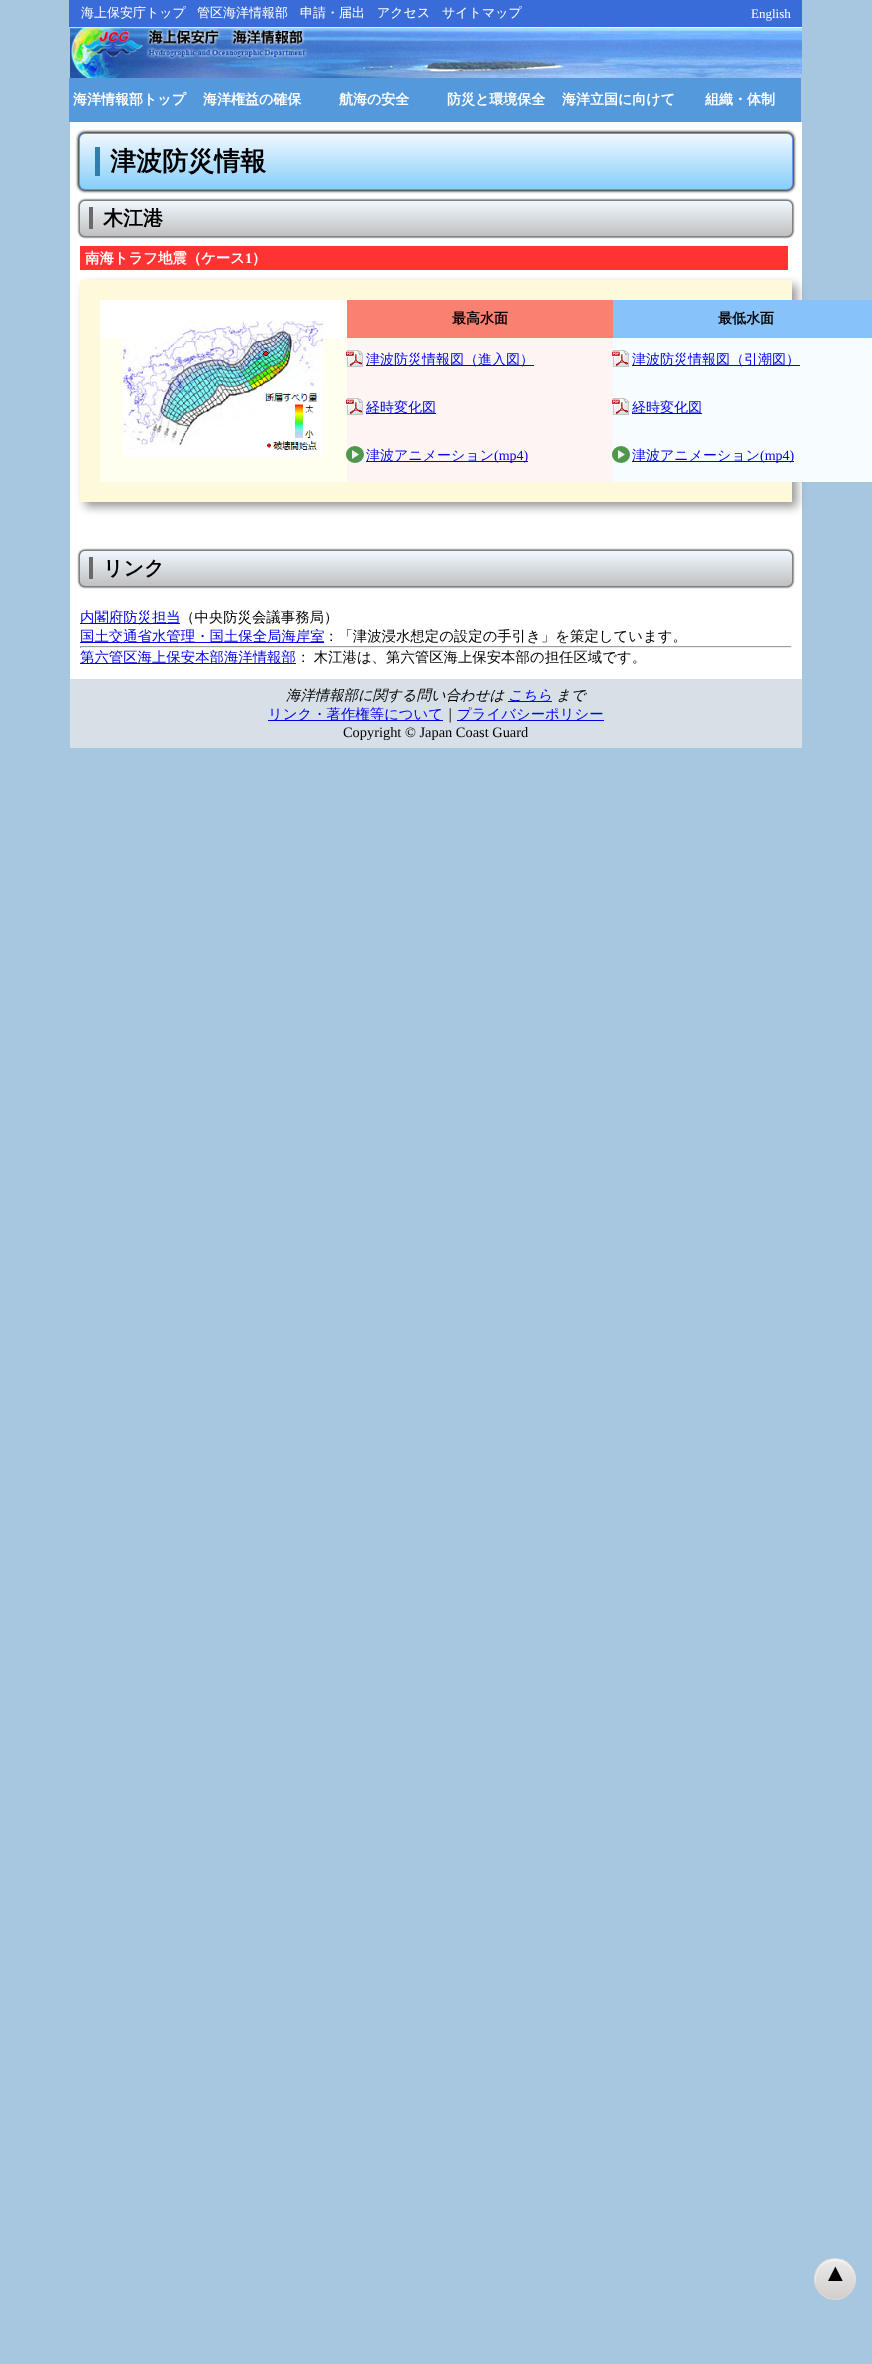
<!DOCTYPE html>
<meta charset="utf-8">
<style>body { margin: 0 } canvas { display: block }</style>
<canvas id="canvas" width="872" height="2364"></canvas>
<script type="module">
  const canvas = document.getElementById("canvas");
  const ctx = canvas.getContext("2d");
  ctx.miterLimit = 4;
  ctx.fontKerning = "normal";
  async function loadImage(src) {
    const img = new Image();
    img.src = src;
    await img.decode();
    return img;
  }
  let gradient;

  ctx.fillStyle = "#a7c7e0";
  ctx.fillRect(0, 0, 872, 2364);
  ctx.fillStyle = "#396cd9";
  ctx.fillRect(69, 0, 733, 27);
  ctx.font = "500 13px WenQuanYi Zen Hei";
  ctx.fillStyle = "#ffffff";
  ctx.fillText("海上保安庁トップ", 81, 17);
  ctx.fillText("管区海洋情報部", 197, 17);
  ctx.fillText("申請・届出", 300, 17);
  ctx.fillText("アクセス", 377, 17);
  ctx.fillText("サイトマップ", 442, 17);
  ctx.font = "13px Liberation Serif";
  ctx.fillText("English", 751, 18);
  ctx.drawImage(await loadImage("img1.png"), 70, 27, 732, 51);
  ctx.fillStyle = "#5599dd";
  ctx.fillRect(69, 78, 732, 44);
  ctx.font = "bold 14px WenQuanYi Zen Hei";
  ctx.fillStyle = "#ffffff";
  ctx.fillText("海洋情報部トップ", 73, 104);
  ctx.fillText("海洋権益の確保", 203, 104);
  ctx.fillText("航海の安全", 339, 104);
  ctx.fillText("防災と環境保全", 447, 104);
  ctx.fillText("海洋立国に向けて", 562, 104);
  ctx.fillText("組織・体制", 705, 104);
  ctx.fillRect(70, 122, 732, 557);
  ctx.fillStyle = "#000000";
  ctx.filter = "blur(1.5px)";
  ctx.beginPath();
  ctx.roundRect(78, 132, 716, 59, 7);
  ctx.fill();
  ctx.filter = "none";
  ctx.fillStyle = "#6495ed";
  ctx.filter = "blur(0.5px)";
  ctx.beginPath();
  ctx.roundRect(79, 133, 714, 57, 6);
  ctx.fill();
  ctx.filter = "none";
  gradient = ctx.createLinearGradient(436, 134, 436, 189);
  gradient.addColorStop(0, "#f0f8ff");
  gradient.addColorStop(1, "#87cefa");
  ctx.fillStyle = gradient;
  ctx.beginPath();
  ctx.roundRect(80, 134, 712, 55, 5);
  ctx.fill();
  ctx.font = "bold 26px WenQuanYi Zen Hei";
  ctx.fillStyle = "#000000";
  ctx.fillText("津波防災情報", 110, 170);
  ctx.fillStyle = "#307eae";
  ctx.fillRect(95, 147, 5, 29);
  ctx.fillStyle = "#000000";
  ctx.filter = "blur(1px)";
  ctx.beginPath();
  ctx.roundRect(79, 200, 714, 37, 6);
  ctx.fill();
  ctx.filter = "none";
  ctx.fillStyle = "#808080";
  ctx.filter = "blur(0.5px)";
  ctx.beginPath();
  ctx.roundRect(79, 200, 714, 37, 6);
  ctx.fill();
  ctx.filter = "none";
  gradient = ctx.createLinearGradient(436, 201, 436, 236);
  gradient.addColorStop(0, "#f0f8ff");
  gradient.addColorStop(1, "#c0c0c0");
  ctx.fillStyle = gradient;
  ctx.beginPath();
  ctx.roundRect(80, 201, 712, 35, 5);
  ctx.fill();
  ctx.font = "bold 20px WenQuanYi Zen Hei";
  ctx.fillStyle = "#000000";
  ctx.fillText("木江港", 103, 225);
  ctx.fillStyle = "#696969";
  ctx.fillRect(89, 207, 4, 22);
  ctx.fillStyle = "#ff3333";
  ctx.fillRect(80, 246, 708, 24);
  ctx.font = "bold 14.4px WenQuanYi Zen Hei";
  ctx.fillStyle = "#ffffff";
  ctx.fillText("南海トラフ地震（ケース", 85, 263);
  ctx.font = "bold 14.4px Liberation Serif";
  ctx.fillText("1", 245, 263);
  ctx.font = "bold 14.4px WenQuanYi Zen Hei";
  ctx.fillText("）", 252, 263);
  ctx.fillStyle = "rgba(0, 0, 0, 0.4)";
  ctx.filter = "blur(5px)";
  ctx.beginPath();
  ctx.rect(85, 285, 712, 222);
  ctx.fill();
  ctx.filter = "none";
  ctx.fillStyle = "#fcfada";
  ctx.fillRect(80, 280, 712, 222);
  ctx.fillStyle = "#ffffff";
  ctx.fillRect(100, 300, 247, 38);
  ctx.fillStyle = "#fffff0";
  ctx.fillRect(100, 338, 247, 144);
  ctx.drawImage(await loadImage("img2.png"), 123, 321, 200, 136);
  ctx.fillStyle = "#fa8072";
  ctx.fillRect(347, 300, 266, 38);
  ctx.font = "bold 14px WenQuanYi Zen Hei";
  ctx.fillStyle = "#000000";
  ctx.fillText("最高水面", 452, 323);
  ctx.fillStyle = "#87c2fa";
  ctx.fillRect(613, 300, 259, 38);
  ctx.fillStyle = "#000000";
  ctx.fillText("最低水面", 718, 323);
  ctx.fillStyle = "#fdf5f3";
  ctx.fillRect(347, 338, 266, 144);
  ctx.drawImage(await loadImage("img3.png"), 346, 350, 17, 17);
  ctx.fillStyle = "#0000ee";
  ctx.fillRect(366, 365, 168, 1);
  ctx.font = "500 14px WenQuanYi Zen Hei";
  ctx.fillText("津波防災情報図（進入図）", 366, 364);
  ctx.drawImage(await loadImage("img3.png"), 346, 398, 17, 17);
  ctx.fillRect(366, 413, 70, 1);
  ctx.fillText("経時変化図", 366, 412);
  ctx.drawImage(await loadImage("img4.png"), 346, 446, 18, 17);
  ctx.fillRect(366, 461, 162, 1);
  ctx.fillText("津波アニメーション", 366, 460);
  ctx.font = "14px Liberation Serif";
  ctx.fillText("(mp4)", 494, 460);
  ctx.fillStyle = "#f7fcff";
  ctx.fillRect(613, 338, 259, 144);
  ctx.drawImage(await loadImage("img5.png"), 612, 350, 17, 17);
  ctx.fillStyle = "#0000ee";
  ctx.fillRect(632, 365, 168, 1);
  ctx.font = "500 14px WenQuanYi Zen Hei";
  ctx.fillText("津波防災情報図（引潮図）", 632, 364);
  ctx.drawImage(await loadImage("img5.png"), 612, 398, 17, 17);
  ctx.fillRect(632, 413, 70, 1);
  ctx.fillText("経時変化図", 632, 412);
  ctx.drawImage(await loadImage("img6.png"), 612, 446, 18, 17);
  ctx.fillRect(632, 461, 162, 1);
  ctx.fillText("津波アニメーション", 632, 460);
  ctx.font = "14px Liberation Serif";
  ctx.fillText("(mp4)", 760, 460);
  ctx.fillStyle = "#000000";
  ctx.filter = "blur(1px)";
  ctx.beginPath();
  ctx.roundRect(79, 550, 714, 37, 6);
  ctx.fill();
  ctx.filter = "none";
  ctx.fillStyle = "#808080";
  ctx.filter = "blur(0.5px)";
  ctx.beginPath();
  ctx.roundRect(79, 550, 714, 37, 6);
  ctx.fill();
  ctx.filter = "none";
  gradient = ctx.createLinearGradient(436, 551, 436, 586);
  gradient.addColorStop(0, "#f0f8ff");
  gradient.addColorStop(1, "#c0c0c0");
  ctx.fillStyle = gradient;
  ctx.beginPath();
  ctx.roundRect(80, 551, 712, 35, 5);
  ctx.fill();
  ctx.font = "bold 20px WenQuanYi Zen Hei";
  ctx.fillStyle = "#000000";
  ctx.fillText("リンク", 103, 575);
  ctx.fillStyle = "#696969";
  ctx.fillRect(89, 557, 4, 22);
  ctx.fillStyle = "#0000ee";
  ctx.fillRect(80, 623, 100, 1);
  ctx.font = "500 14.4px WenQuanYi Zen Hei";
  ctx.fillText("内閣府防災担当", 80, 622);
  ctx.fillStyle = "#000000";
  ctx.fillText("（中央防災会議事務局）", 180, 622);
  ctx.fillStyle = "#0000ee";
  ctx.fillRect(80, 642, 244, 1);
  ctx.fillText("国土交通省水管理・国土保全局海岸室", 80, 641);
  ctx.fillStyle = "#000000";
  ctx.fillText("：「津波浸水想定の設定の手引き」を策定しています。", 324, 641);
  ctx.fillStyle = "#9f9f9f";
  ctx.fillRect(80, 646, 712, 1);
  ctx.fillStyle = "#eeeeee";
  ctx.fillRect(791, 646, 1, 2);
  ctx.fillRect(80, 647, 712, 1);
  ctx.fillStyle = "#9f9f9f";
  ctx.fillRect(80, 646, 1, 2);
  ctx.fillStyle = "#0000ee";
  ctx.fillRect(80, 663, 216, 1);
  ctx.fillText("第六管区海上保安本部海洋情報部", 80, 662);
  ctx.wordSpacing = "-1px";
  ctx.fillStyle = "#000000";
  ctx.fillText("： 木江港は、第六管区海上保安本部の担任区域です。", 296, 662);
  ctx.fillStyle = "#d8e0e7";
  ctx.fillRect(70, 679, 732, 69);
  ctx.wordSpacing = "0px";
  ctx.font = "italic 500 14.4px WenQuanYi Zen Hei";
  ctx.fillStyle = "#000000";
  ctx.fillText("海洋情報部に関する問い合わせは", 286, 700);
  ctx.fillStyle = "#0000ee";
  ctx.fillRect(508, 701, 44, 1);
  ctx.fillText("こちら", 508, 700);
  ctx.fillStyle = "#000000";
  ctx.fillText("まで", 556, 700);
  ctx.fillStyle = "#0000ee";
  ctx.fillRect(268, 720, 175, 1);
  ctx.font = "500 14.4px WenQuanYi Zen Hei";
  ctx.fillText("リンク・著作権等について", 268, 719);
  ctx.fillStyle = "#000000";
  ctx.fillText("｜", 443, 719);
  ctx.fillStyle = "#0000ee";
  ctx.fillRect(457, 720, 147, 1);
  ctx.fillText("プライバシーポリシー", 457, 719);
  ctx.font = "14.4px Liberation Serif";
  ctx.fillStyle = "#000000";
  ctx.fillText("Copyright © Japan Coast Guard", 343, 737);
  ctx.fillStyle = "#c7c5c1";
  ctx.filter = "blur(0.5px)";
  ctx.beginPath();
  ctx.roundRect(814, 2258, 42, 42, 21);
  ctx.fill();
  ctx.filter = "none";
  ctx.save();
  ctx.beginPath();
  ctx.roundRect(814, 2258, 42, 42, 21);
  ctx.clip();
  gradient = ctx.createLinearGradient(815, 2259, 815, 2299);
  gradient.addColorStop(0, "#eaeaea");
  gradient.addColorStop(1, "#d3cecd");
  ctx.fillStyle = gradient;
  ctx.fillRect(814, 2259, 42, 40);
  ctx.restore();
  ctx.fillStyle = "rgba(255, 255, 255, 0.6)";
  ctx.beginPath();
  ctx.moveTo(835, 2261);
  ctx.bezierCurveTo(850, 2261, 856, 2273, 854, 2285);
  ctx.bezierCurveTo(855, 2280, 855, 2275, 853, 2271);
  ctx.bezierCurveTo(844, 2248, 809, 2261, 816, 2285);
  ctx.bezierCurveTo(814, 2273, 820, 2261, 835, 2261);
  ctx.closePath();
  ctx.fill();
  ctx.beginPath();
  ctx.arc(835, 2279, 20.5, 0, Math.PI * 2);
  ctx.strokeStyle = "#dcd9d8";
  ctx.stroke();
  ctx.font = "25px Liberation Serif";
  ctx.fillStyle = "#000000";
  ctx.fillText("▲", 823, 2281);
</script>
